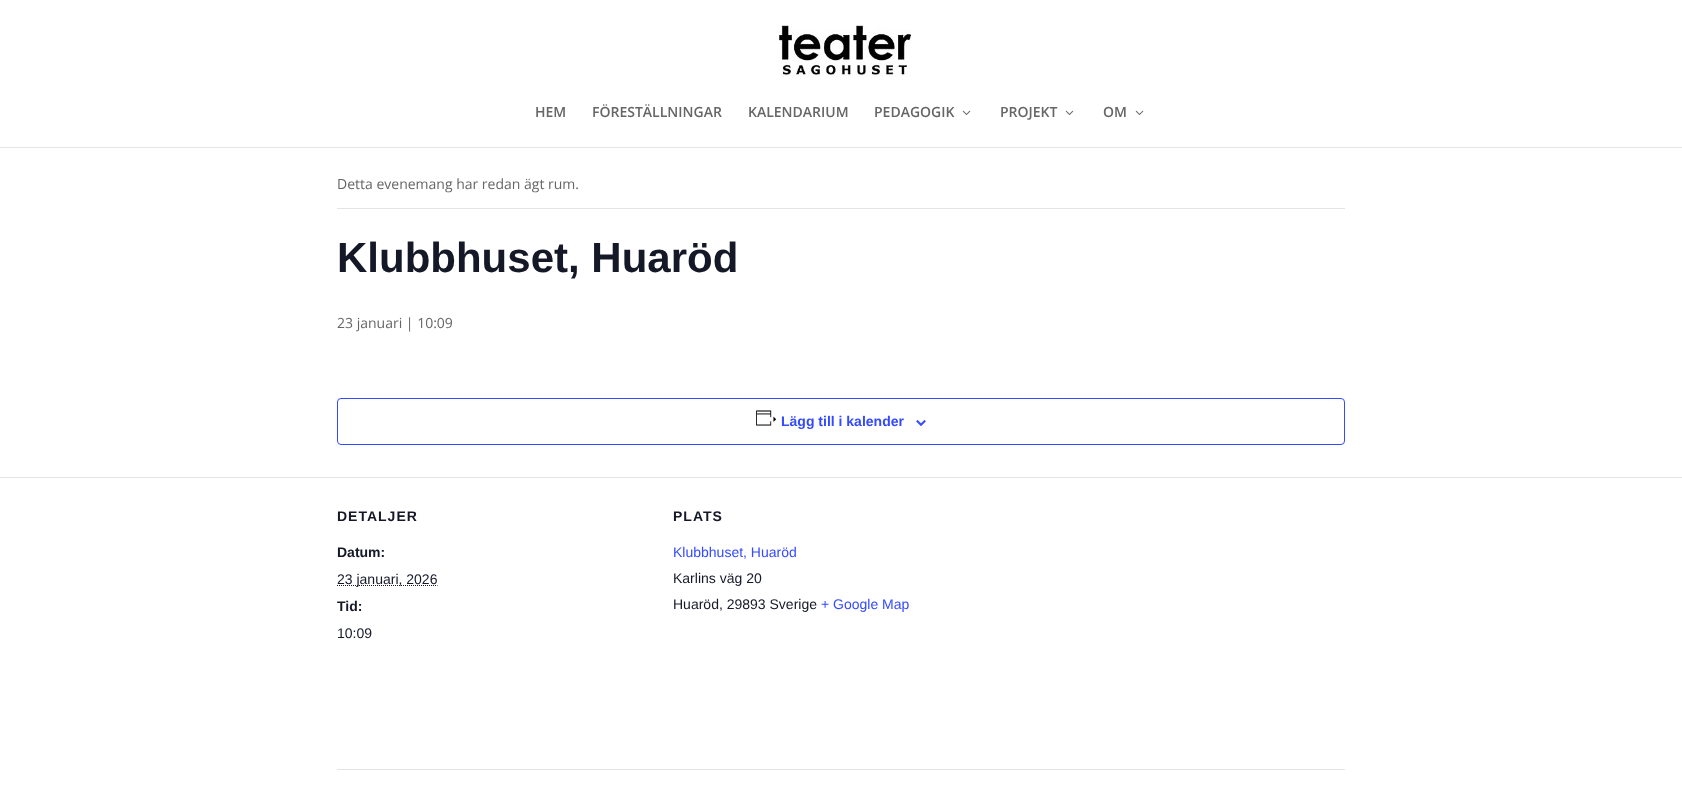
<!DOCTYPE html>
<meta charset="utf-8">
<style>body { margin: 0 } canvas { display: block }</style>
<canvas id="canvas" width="1682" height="810"></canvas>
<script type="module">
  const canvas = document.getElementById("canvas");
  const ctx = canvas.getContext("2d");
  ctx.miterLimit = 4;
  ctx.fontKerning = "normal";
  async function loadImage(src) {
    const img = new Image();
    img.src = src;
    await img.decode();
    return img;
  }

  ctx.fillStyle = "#ffffff";
  ctx.fillRect(0, 0, 1682, 810);
  ctx.fillStyle = "#e6e6e6";
  ctx.fillRect(0, 147, 1682, 1);
  ctx.drawImage(await loadImage("img1.png"), 778, 25, 134, 52);
  ctx.font = "600 14px Open Sans";
  ctx.fillStyle = "#666666";
  ctx.fillText("HEM", 535, 117);
  ctx.fillText("FÖRESTÄLLNINGAR", 592, 117);
  ctx.fillText("KALENDARIUM", 748, 117);
  ctx.fillText("PEDAGOGIK", 874, 117);
  ctx.drawImage(await loadImage("img2.png"), 962, 110, 9, 5);
  ctx.fillText("PROJEKT", 1000, 117);
  ctx.drawImage(await loadImage("img2.png"), 1065, 110, 9, 5);
  ctx.fillText("OM", 1103, 117);
  ctx.drawImage(await loadImage("img2.png"), 1135, 110, 9, 5);
  ctx.fillStyle = "#e4e4e4";
  ctx.fillRect(337, 208, 1008, 1);
  ctx.font = "14px Open Sans";
  ctx.fillStyle = "#666666";
  ctx.fillText("Detta evenemang har redan ägt rum.", 337, 189);
  ctx.font = "bold 42px Liberation Sans";
  ctx.fillStyle = "#141827";
  ctx.fillText("Klubbhuset, Huaröd", 337, 272);
  ctx.font = "14px Open Sans";
  ctx.fillStyle = "#666666";
  ctx.fillText("23 januari | 10:09", 337, 328);
  ctx.beginPath();
  ctx.roundRect(337.5, 398.5, 1007, 46, 3.5);
  ctx.strokeStyle = "#334aff";
  ctx.stroke();
  ctx.drawImage(await loadImage("img3.png"), 756, 410, 21, 16);
  ctx.font = "bold 14px Liberation Sans";
  ctx.fillStyle = "#334aff";
  ctx.fillText("Lägg till i kalender", 781, 426);
  ctx.drawImage(await loadImage("img4.png"), 916, 420, 10, 6);
  ctx.fillStyle = "#e4e4e4";
  ctx.fillRect(0, 477, 1682, 1);
  ctx.letterSpacing = "1px";
  ctx.fillStyle = "#141827";
  ctx.fillText("DETALJER", 337, 521);
  ctx.letterSpacing = "0px";
  ctx.fillText("Datum:", 337, 557);
  ctx.beginPath();
  ctx.moveTo(337, 585.5);
  ctx.lineTo(437.5, 585.5);
  ctx.strokeStyle = "#141827";
  ctx.setLineDash([1, 1]);
  ctx.stroke();
  ctx.font = "14px Liberation Sans";
  ctx.fillText("23 januari, 2026", 337, 584);
  ctx.font = "bold 14px Liberation Sans";
  ctx.fillText("Tid:", 337, 611);
  ctx.font = "14px Liberation Sans";
  ctx.fillText("10:09", 337, 638);
  ctx.letterSpacing = "1px";
  ctx.font = "bold 14px Liberation Sans";
  ctx.fillText("PLATS", 673, 521);
  ctx.letterSpacing = "0px";
  ctx.font = "14px Liberation Sans";
  ctx.fillStyle = "#334aff";
  ctx.fillText("Klubbhuset, Huaröd", 673, 557);
  ctx.fillStyle = "#141827";
  ctx.fillText("Karlins väg 20", 673, 583);
  ctx.fillText("Huaröd, 29893 Sverige", 673, 609);
  ctx.fillStyle = "#334aff";
  ctx.fillText("+ Google Map", 821, 609);
  ctx.fillStyle = "#e4e4e4";
  ctx.fillRect(337, 769, 1008, 1);
</script>
